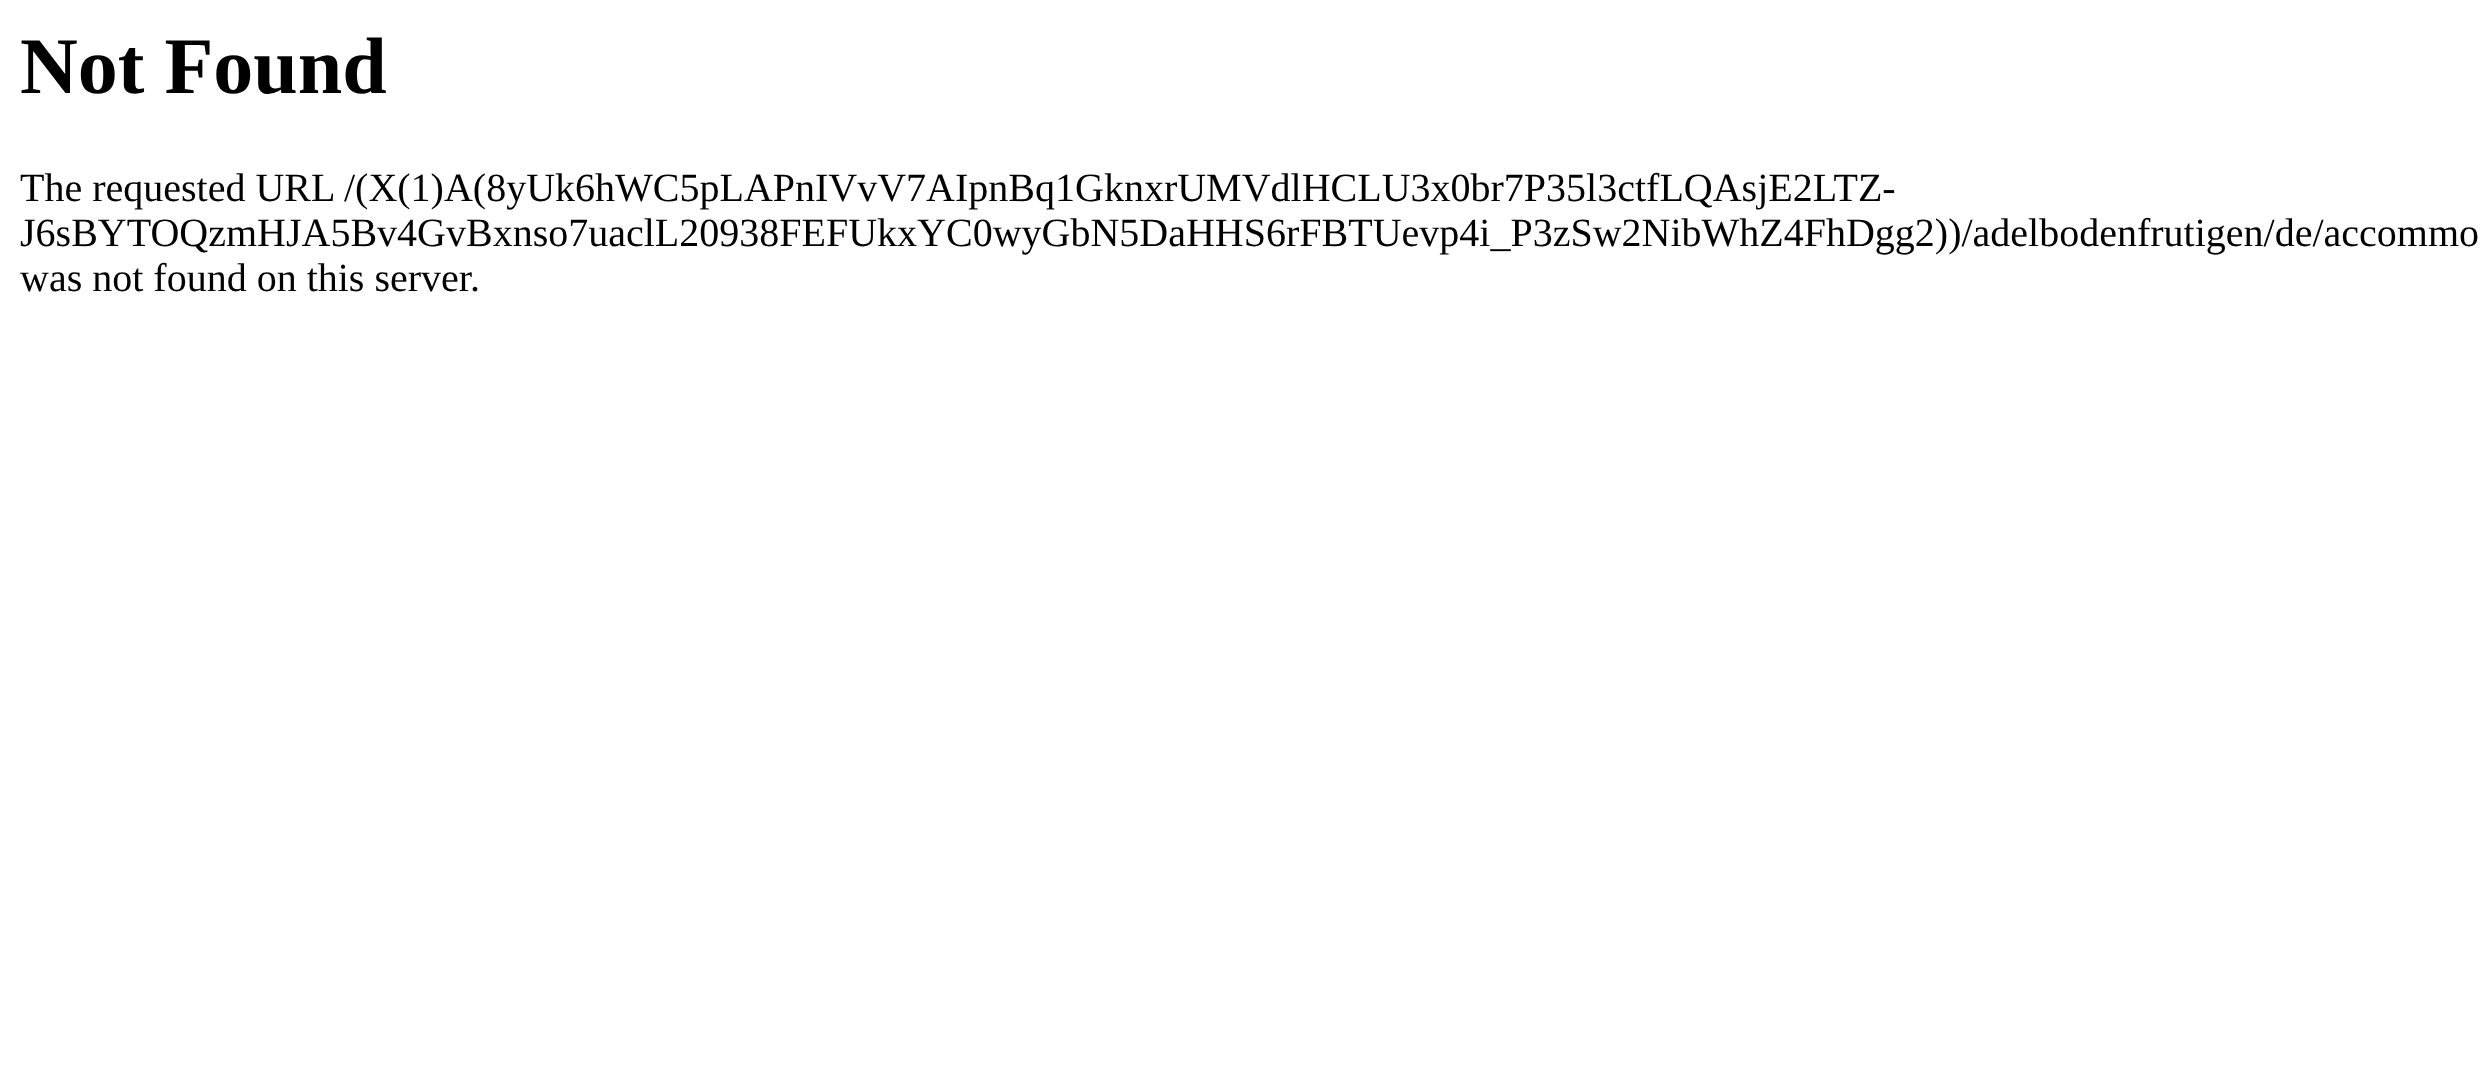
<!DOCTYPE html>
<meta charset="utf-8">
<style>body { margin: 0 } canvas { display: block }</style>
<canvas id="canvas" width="2485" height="1083"></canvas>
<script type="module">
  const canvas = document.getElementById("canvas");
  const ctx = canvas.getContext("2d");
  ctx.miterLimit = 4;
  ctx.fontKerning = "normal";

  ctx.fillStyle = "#ffffff";
  ctx.fillRect(0, 0, 2485, 1083);
  ctx.font = "bold 80px Liberation Serif";
  ctx.fillStyle = "#000000";
  ctx.fillText("Not Found", 20, 93);
  ctx.font = "40px Liberation Serif";
  ctx.fillText("The requested URL /(X(1)A(8yUk6hWC5pLAPnIVvV7AIpnBq1GknxrUMVdlHCLU3x0br7P35l3ctfLQAsjE2LTZ-", 20, 201);
  ctx.fillText("J6sBYTOQzmHJA5Bv4GvBxnso7uaclL20938FEFUkxYC0wyGbN5DaHHS6rFBTUevp4i_P3zSw2NibWhZ4FhDgg2))/adelbodenfrutigen/de/accommo", 20, 246);
  ctx.fillText("was not found on this server.", 20, 291);
</script>
